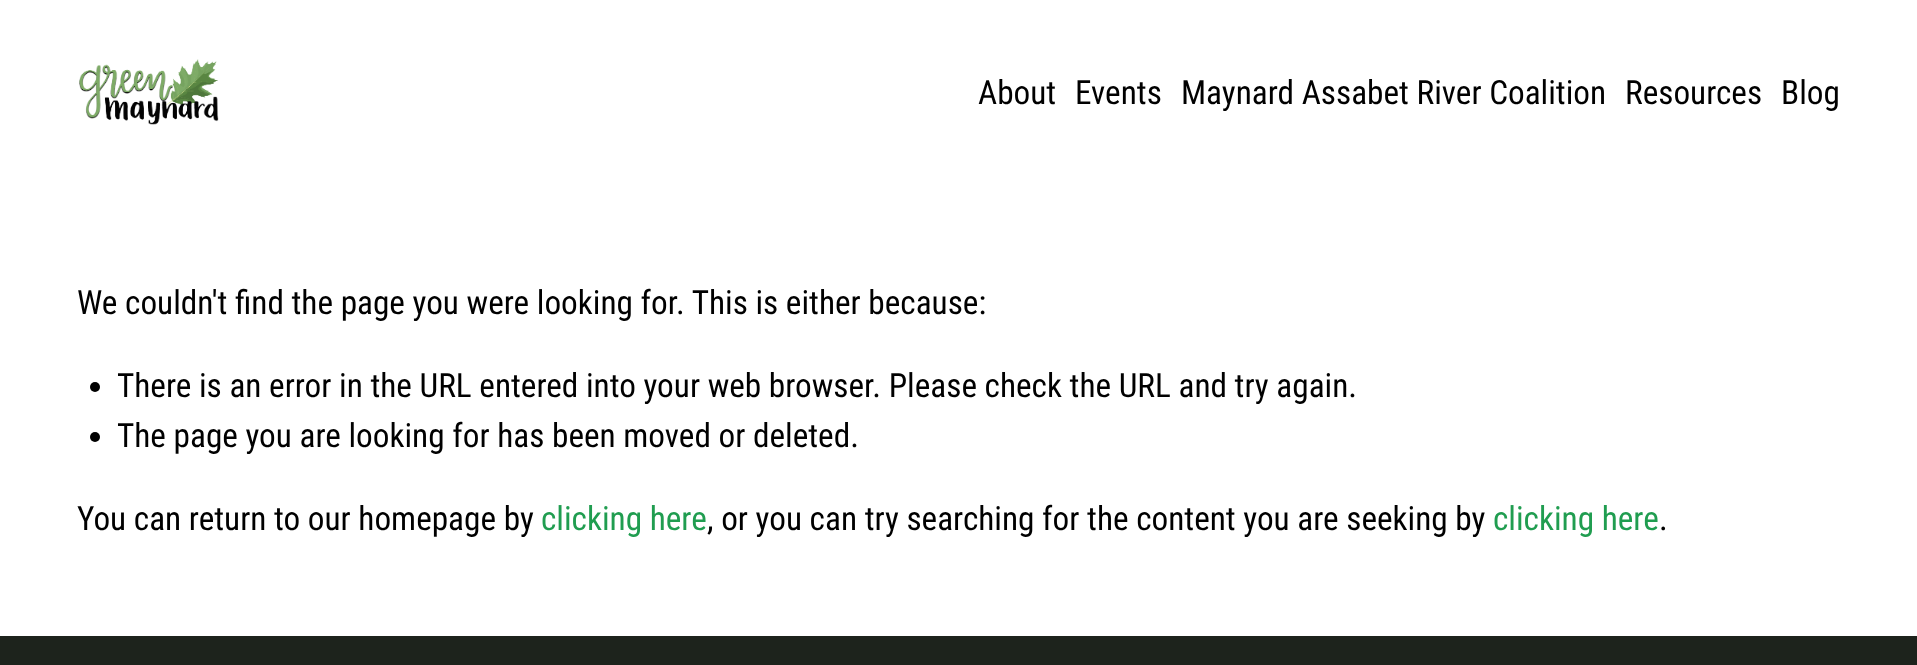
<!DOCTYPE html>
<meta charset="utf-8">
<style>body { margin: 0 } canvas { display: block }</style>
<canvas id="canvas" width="1917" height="665"></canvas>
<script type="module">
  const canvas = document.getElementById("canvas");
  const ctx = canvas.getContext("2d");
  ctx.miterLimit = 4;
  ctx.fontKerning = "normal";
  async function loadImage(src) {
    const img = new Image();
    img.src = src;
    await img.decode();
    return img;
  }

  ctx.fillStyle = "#ffffff";
  ctx.fillRect(0, 0, 1917, 665);
  ctx.drawImage(await loadImage("img1.png"), 79, 59, 140, 66);
  ctx.font = "33.25px Roboto Condensed";
  ctx.fillStyle = "#000000";
  ctx.fillText("About", 978, 104);
  ctx.fillText("Events", 1075, 104);
  ctx.fillText("Maynard Assabet River Coalition", 1181, 104);
  ctx.fillText("Resources", 1625, 104);
  ctx.fillText("Blog", 1781, 104);
  ctx.fillText("We couldn't find the page you were looking for. This is either because:", 77, 314);
  ctx.beginPath();
  ctx.arc(95, 387, 5, 0, Math.PI * 2);
  ctx.fill();
  ctx.fillText("There is an error in the URL entered into your web browser. Please check the URL and try again.", 117, 397);
  ctx.beginPath();
  ctx.arc(95, 437, 5, 0, Math.PI * 2);
  ctx.fill();
  ctx.fillText("The page you are looking for has been moved or deleted.", 117, 447);
  ctx.fillText("You can return to our homepage by", 77, 530);
  ctx.fillStyle = "#209d50";
  ctx.fillText("clicking here", 541, 530);
  ctx.fillStyle = "#000000";
  ctx.fillText(", or you can try searching for the content you are seeking by", 707, 530);
  ctx.fillStyle = "#209d50";
  ctx.fillText("clicking here", 1493, 530);
  ctx.fillStyle = "#000000";
  ctx.fillText(".", 1659, 530);
  ctx.fillStyle = "#1d231c";
  ctx.fillRect(0, 636, 1917, 29);
</script>
